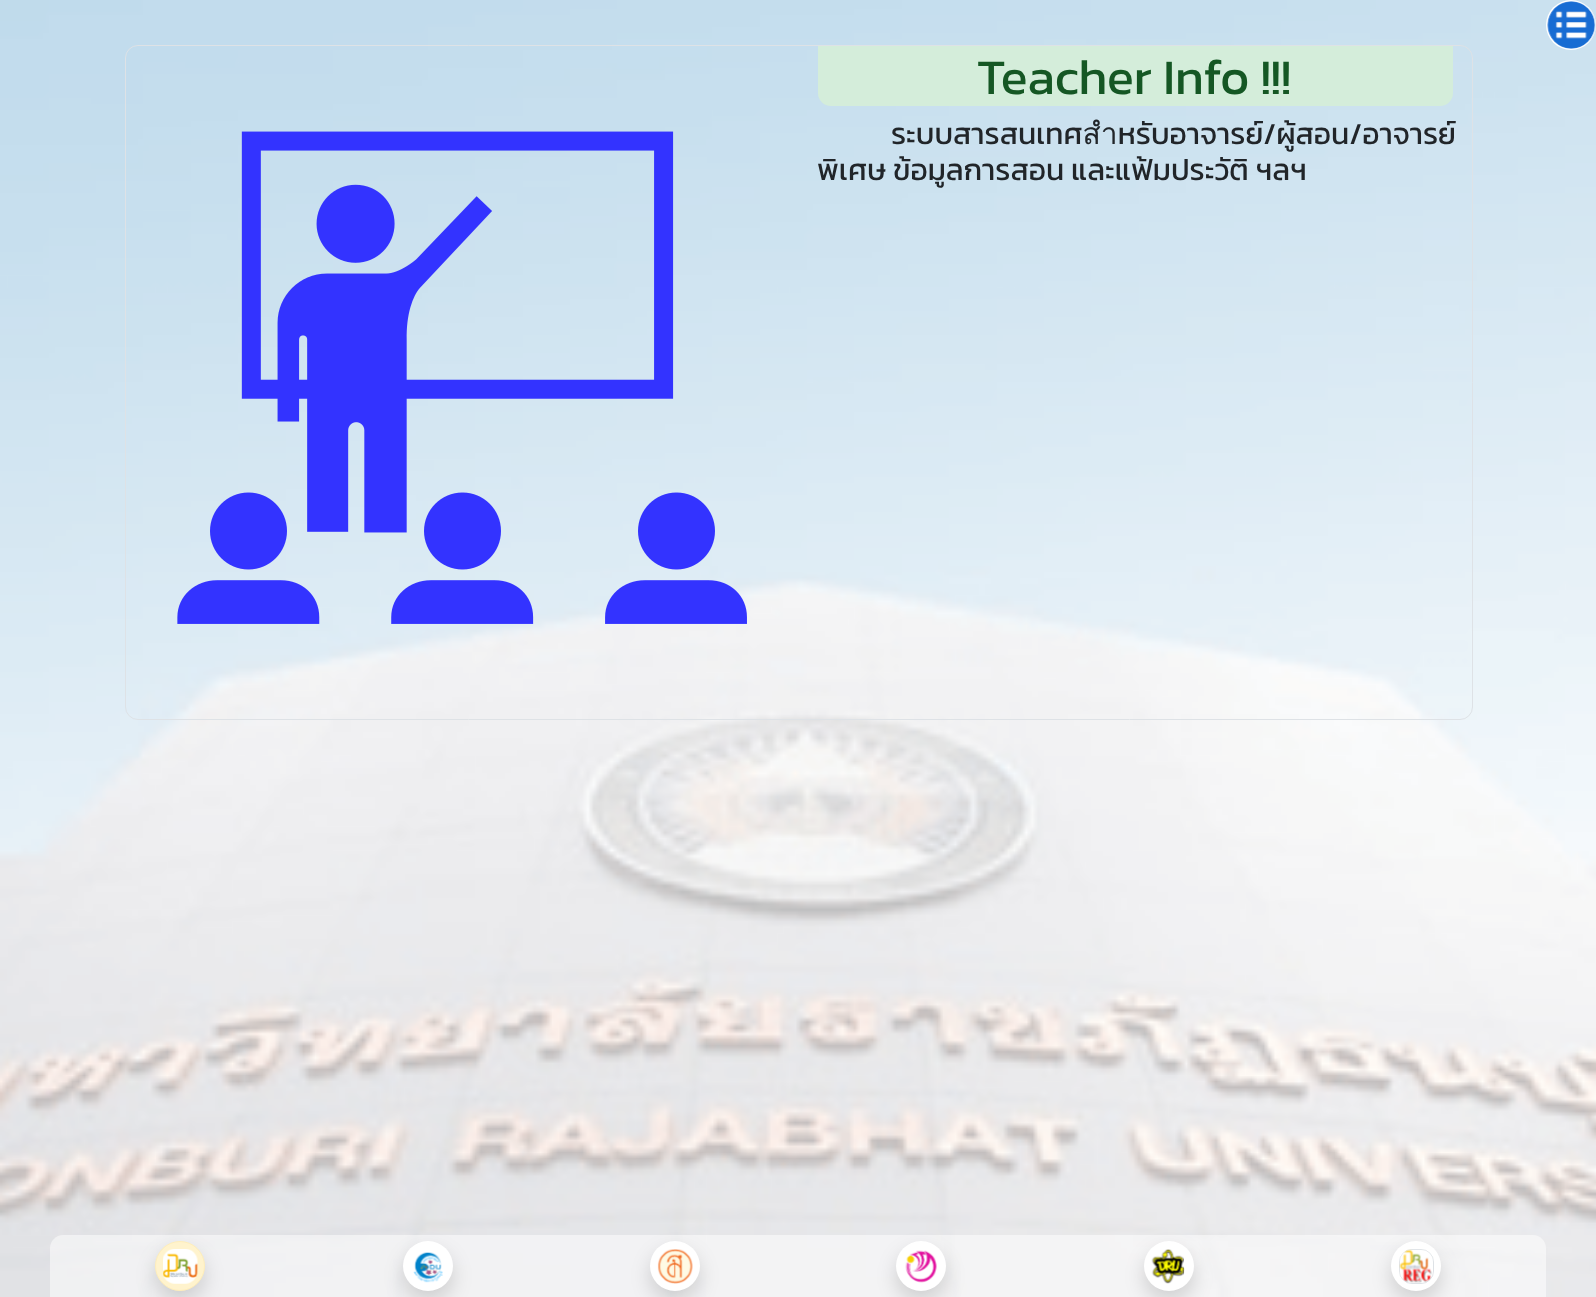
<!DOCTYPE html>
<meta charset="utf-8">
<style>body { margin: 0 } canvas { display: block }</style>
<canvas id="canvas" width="1596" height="1297"></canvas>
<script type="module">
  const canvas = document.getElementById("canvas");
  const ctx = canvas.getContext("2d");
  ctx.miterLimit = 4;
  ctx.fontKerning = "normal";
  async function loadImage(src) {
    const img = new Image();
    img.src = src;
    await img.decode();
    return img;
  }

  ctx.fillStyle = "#ffffff";
  ctx.fillRect(0, 0, 1596, 1297);
  ctx.drawImage(await loadImage("img1.png"), 0, 0, 1596, 1297);
  ctx.beginPath();
  ctx.arc(1571, 25, 25, 0, Math.PI * 2);
  ctx.fill();
  ctx.drawImage(await loadImage("img2.png"), 1547, 1, 49, 48);
  ctx.beginPath();
  ctx.roundRect(125.5, 45.5, 1347, 674, 12.5);
  ctx.strokeStyle = "#dee2e6";
  ctx.stroke();
  ctx.drawImage(await loadImage("img3.png"), 177, 131, 570, 493);
  ctx.fillStyle = "#d4edda";
  ctx.beginPath();
  ctx.roundRect(818, 46, 635, 60, [0, 0, 13, 13]);
  ctx.fill();
  ctx.font = "50px Kanit";
  ctx.fillStyle = "#155724";
  ctx.fillText("Teacher Info !!!", 977, 94);
  ctx.font = "30px Kanit";
  ctx.fillStyle = "#212529";
  ctx.fillText("ระบบสารสนเทศสำหรับอาจารย์/ผู้สอน/อาจารย์", 891, 144);
  ctx.fillText("พิเศษ ข้อมูลการสอน และแฟ้มประวัติ ฯลฯ", 817, 180);
  ctx.fillStyle = "rgba(255, 255, 255, 0.5)";
  ctx.beginPath();
  ctx.moveTo(63, 1235);
  ctx.lineTo(1533, 1235);
  ctx.bezierCurveTo(1540, 1235, 1546, 1241, 1546, 1248);
  ctx.lineTo(1546, 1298);
  ctx.lineTo(50, 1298);
  ctx.lineTo(50, 1248);
  ctx.bezierCurveTo(50, 1241, 56, 1235, 63, 1235);
  ctx.closePath();
  ctx.fill();
  ctx.fillStyle = "rgba(0, 0, 0, 0.15)";
  ctx.filter = "blur(10px)";
  ctx.beginPath();
  ctx.roundRect(155, 1251, 50, 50, 25);
  ctx.fill();
  ctx.filter = "none";
  ctx.fillStyle = "#fff3cd";
  ctx.beginPath();
  ctx.arc(180, 1266, 24.5, 0, Math.PI * 2);
  ctx.fill();
  ctx.strokeStyle = "#ffeeba";
  ctx.stroke();
  ctx.drawImage(await loadImage("img4.png"), 163, 1249, 35, 35);
  ctx.fillStyle = "rgba(0, 0, 0, 0.15)";
  ctx.filter = "blur(10px)";
  ctx.beginPath();
  ctx.roundRect(403, 1251, 50, 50, 25);
  ctx.fill();
  ctx.filter = "none";
  ctx.fillStyle = "#ffffff";
  ctx.beginPath();
  ctx.arc(428, 1266, 25, 0, Math.PI * 2);
  ctx.fill();
  ctx.drawImage(await loadImage("img5.png"), 413, 1252, 30, 31);
  ctx.fillStyle = "rgba(0, 0, 0, 0.15)";
  ctx.filter = "blur(10px)";
  ctx.beginPath();
  ctx.roundRect(650, 1251, 50, 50, 25);
  ctx.fill();
  ctx.filter = "none";
  ctx.fillStyle = "#ffffff";
  ctx.beginPath();
  ctx.arc(675, 1266, 25, 0, Math.PI * 2);
  ctx.fill();
  ctx.drawImage(await loadImage("img6.png"), 657, 1249, 36, 35);
  ctx.fillStyle = "rgba(0, 0, 0, 0.15)";
  ctx.filter = "blur(10px)";
  ctx.beginPath();
  ctx.roundRect(896, 1251, 50, 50, 25);
  ctx.fill();
  ctx.filter = "none";
  ctx.fillStyle = "#ffffff";
  ctx.beginPath();
  ctx.arc(921, 1266, 25, 0, Math.PI * 2);
  ctx.fill();
  ctx.drawImage(await loadImage("img7.png"), 905, 1250, 32, 33);
  ctx.fillStyle = "rgba(0, 0, 0, 0.15)";
  ctx.filter = "blur(10px)";
  ctx.beginPath();
  ctx.roundRect(1144, 1251, 50, 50, 25);
  ctx.fill();
  ctx.filter = "none";
  ctx.fillStyle = "#ffffff";
  ctx.beginPath();
  ctx.arc(1169, 1266, 25, 0, Math.PI * 2);
  ctx.fill();
  ctx.drawImage(await loadImage("img8.png"), 1151, 1249, 34, 35);
  ctx.fillStyle = "rgba(0, 0, 0, 0.15)";
  ctx.filter = "blur(10px)";
  ctx.beginPath();
  ctx.roundRect(1391, 1251, 50, 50, 25);
  ctx.fill();
  ctx.filter = "none";
  ctx.fillStyle = "#ffffff";
  ctx.beginPath();
  ctx.arc(1416, 1266, 25, 0, Math.PI * 2);
  ctx.fill();
  ctx.beginPath();
  ctx.roundRect(1399.5, 1249.5, 34, 34, 12.5);
  ctx.strokeStyle = "#dee2e6";
  ctx.stroke();
  ctx.drawImage(await loadImage("img9.png"), 1399, 1249, 34, 34);
</script>
